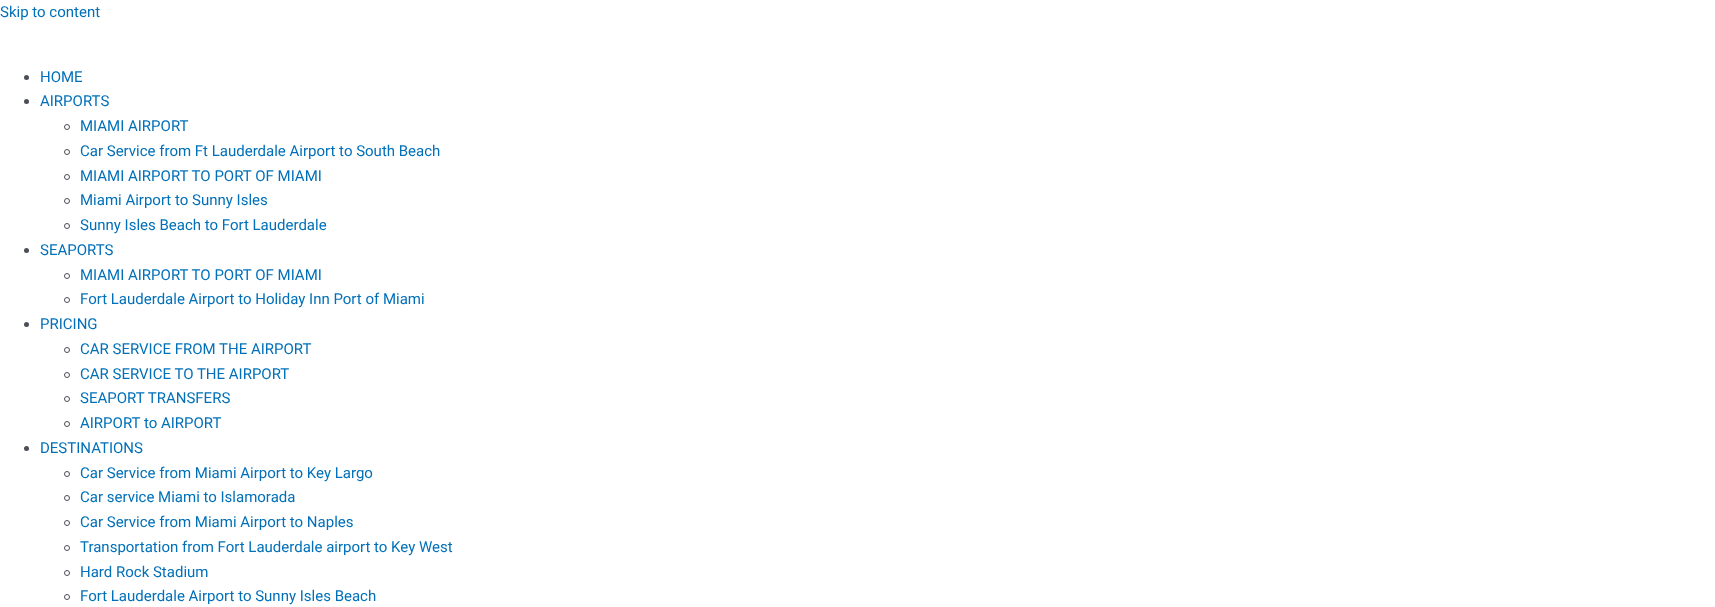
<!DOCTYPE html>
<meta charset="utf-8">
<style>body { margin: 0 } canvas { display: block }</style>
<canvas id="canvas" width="1715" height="607"></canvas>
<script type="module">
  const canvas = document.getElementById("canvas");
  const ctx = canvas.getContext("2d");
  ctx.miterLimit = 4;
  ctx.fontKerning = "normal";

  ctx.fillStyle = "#ffffff";
  ctx.fillRect(0, 0, 1715, 607);
  ctx.font = "15px Roboto";
  ctx.fillStyle = "#0170b9";
  ctx.fillText("Skip to content", 0, 17);
  ctx.fillStyle = "#4b4f58";
  ctx.beginPath();
  ctx.arc(26.5, 77.5, 2.5, 0, Math.PI * 2);
  ctx.fill();
  ctx.fillStyle = "#0170b9";
  ctx.fillText("HOME", 40, 82);
  ctx.fillStyle = "#4b4f58";
  ctx.beginPath();
  ctx.arc(26.5, 101.5, 2.5, 0, Math.PI * 2);
  ctx.fill();
  ctx.fillStyle = "#0170b9";
  ctx.fillText("AIRPORTS", 40, 106);
  ctx.beginPath();
  ctx.arc(67, 127, 2.5, 0, Math.PI * 2);
  ctx.strokeStyle = "#4b4f58";
  ctx.stroke();
  ctx.fillText("MIAMI AIRPORT", 80, 131);
  ctx.beginPath();
  ctx.arc(67, 152, 2.5, 0, Math.PI * 2);
  ctx.stroke();
  ctx.fillText("Car Service from Ft Lauderdale Airport to South Beach", 80, 156);
  ctx.beginPath();
  ctx.arc(67, 177, 2.5, 0, Math.PI * 2);
  ctx.stroke();
  ctx.fillText("MIAMI AIRPORT TO PORT OF MIAMI", 80, 181);
  ctx.beginPath();
  ctx.arc(67, 201, 2.5, 0, Math.PI * 2);
  ctx.stroke();
  ctx.fillText("Miami Airport to Sunny Isles", 80, 205);
  ctx.beginPath();
  ctx.arc(67, 226, 2.5, 0, Math.PI * 2);
  ctx.stroke();
  ctx.fillText("Sunny Isles Beach to Fort Lauderdale", 80, 230);
  ctx.fillStyle = "#4b4f58";
  ctx.beginPath();
  ctx.arc(26.5, 250.5, 2.5, 0, Math.PI * 2);
  ctx.fill();
  ctx.fillStyle = "#0170b9";
  ctx.fillText("SEAPORTS", 40, 255);
  ctx.beginPath();
  ctx.arc(67, 276, 2.5, 0, Math.PI * 2);
  ctx.stroke();
  ctx.fillText("MIAMI AIRPORT TO PORT OF MIAMI", 80, 280);
  ctx.beginPath();
  ctx.arc(67, 300, 2.5, 0, Math.PI * 2);
  ctx.stroke();
  ctx.fillText("Fort Lauderdale Airport to Holiday Inn Port of Miami", 80, 304);
  ctx.fillStyle = "#4b4f58";
  ctx.beginPath();
  ctx.arc(26.5, 324.5, 2.5, 0, Math.PI * 2);
  ctx.fill();
  ctx.fillStyle = "#0170b9";
  ctx.fillText("PRICING", 40, 329);
  ctx.beginPath();
  ctx.arc(67, 350, 2.5, 0, Math.PI * 2);
  ctx.stroke();
  ctx.fillText("CAR SERVICE FROM THE AIRPORT", 80, 354);
  ctx.beginPath();
  ctx.arc(67, 375, 2.5, 0, Math.PI * 2);
  ctx.stroke();
  ctx.fillText("CAR SERVICE TO THE AIRPORT", 80, 379);
  ctx.beginPath();
  ctx.arc(67, 399, 2.5, 0, Math.PI * 2);
  ctx.stroke();
  ctx.fillText("SEAPORT TRANSFERS", 80, 403);
  ctx.beginPath();
  ctx.arc(67, 424, 2.5, 0, Math.PI * 2);
  ctx.stroke();
  ctx.fillText("AIRPORT to AIRPORT", 80, 428);
  ctx.fillStyle = "#4b4f58";
  ctx.beginPath();
  ctx.arc(26.5, 448.5, 2.5, 0, Math.PI * 2);
  ctx.fill();
  ctx.fillStyle = "#0170b9";
  ctx.fillText("DESTINATIONS", 40, 453);
  ctx.beginPath();
  ctx.arc(67, 474, 2.5, 0, Math.PI * 2);
  ctx.stroke();
  ctx.fillText("Car Service from Miami Airport to Key Largo", 80, 478);
  ctx.beginPath();
  ctx.arc(67, 498, 2.5, 0, Math.PI * 2);
  ctx.stroke();
  ctx.fillText("Car service Miami to Islamorada", 80, 502);
  ctx.beginPath();
  ctx.arc(67, 523, 2.5, 0, Math.PI * 2);
  ctx.stroke();
  ctx.fillText("Car Service from Miami Airport to Naples", 80, 527);
  ctx.beginPath();
  ctx.arc(67, 548, 2.5, 0, Math.PI * 2);
  ctx.stroke();
  ctx.fillText("Transportation from Fort Lauderdale airport to Key West", 80, 552);
  ctx.beginPath();
  ctx.arc(67, 573, 2.5, 0, Math.PI * 2);
  ctx.stroke();
  ctx.fillText("Hard Rock Stadium", 80, 577);
  ctx.beginPath();
  ctx.arc(67, 597, 2.5, 0, Math.PI * 2);
  ctx.stroke();
  ctx.fillText("Fort Lauderdale Airport to Sunny Isles Beach", 80, 601);
</script>
